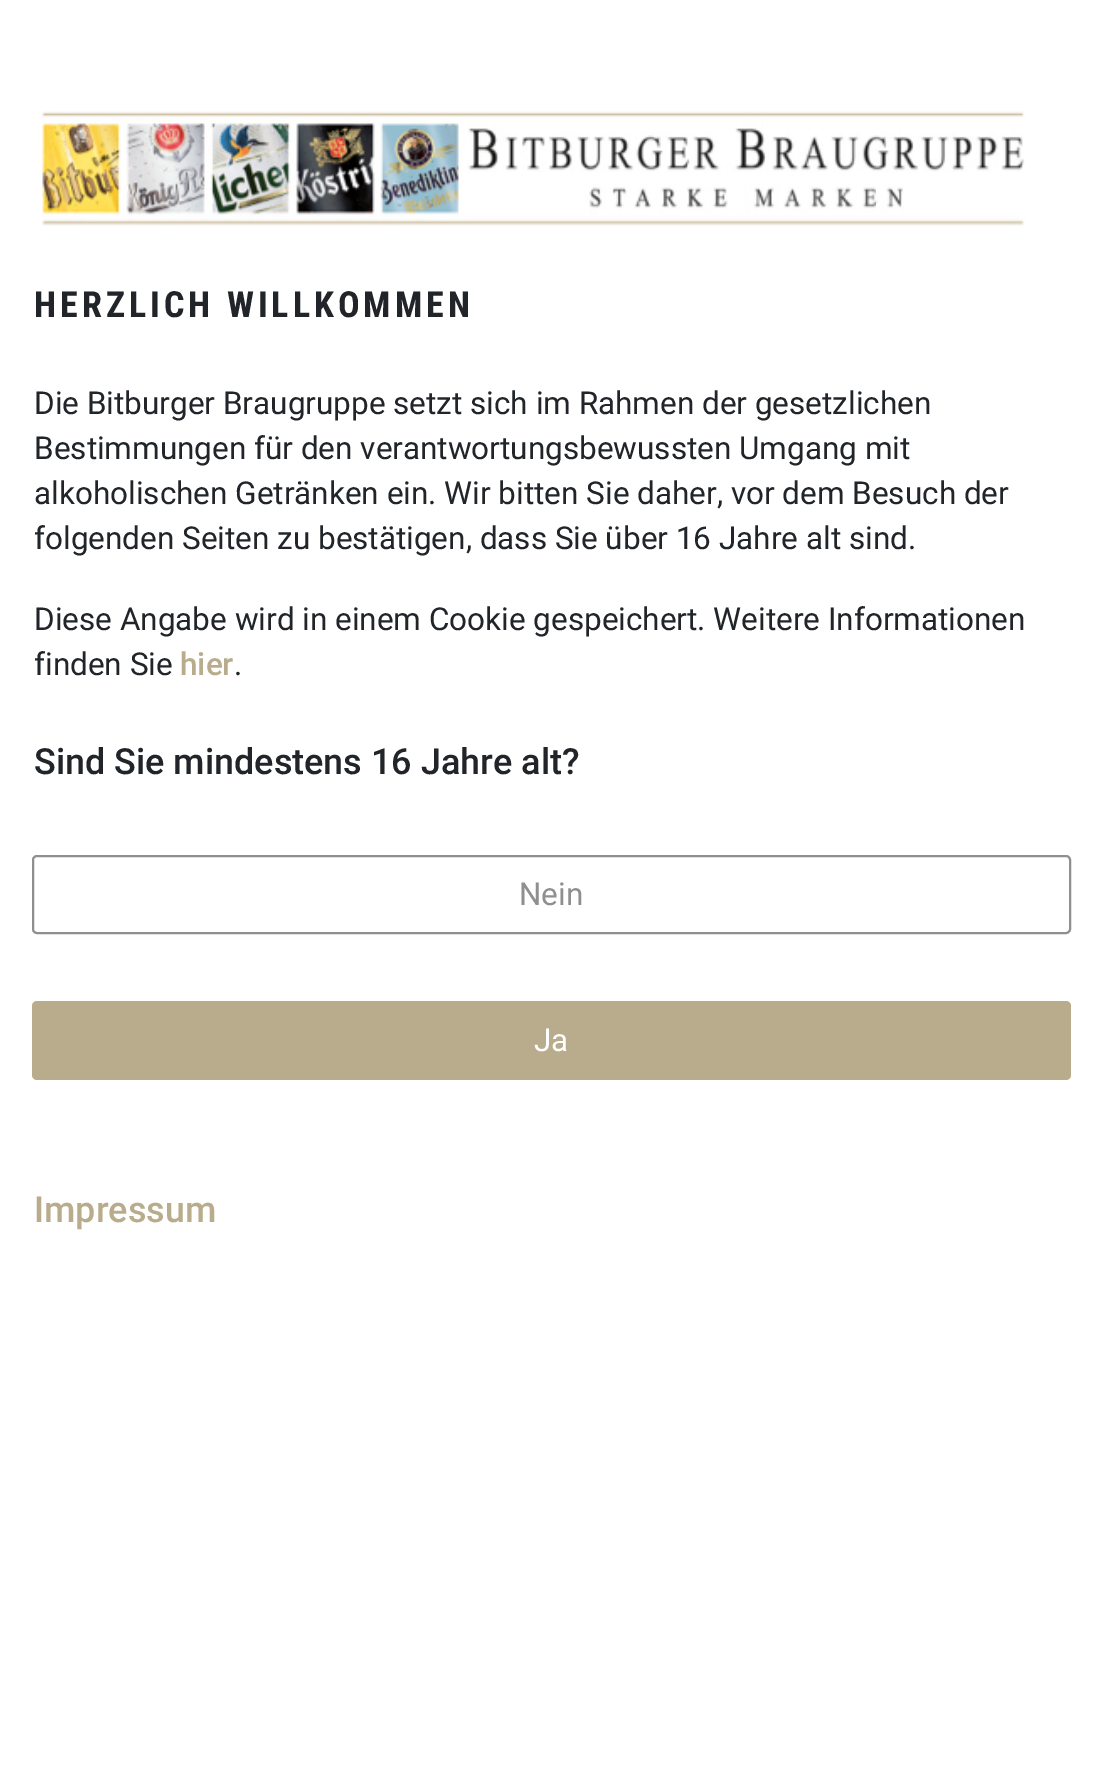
%!PS
<< /PageSize [1101 1782] >> setpagedevice
/rgb { 3 { 255 div 3 1 roll } repeat setrgbcolor } def
/font { [ exch dup neg 0 0 3 -1 roll 0 0 ] selectfont } def
/roundrect { 5 dict begin { /r /h /w /y /x } { exch def } forall
  x r add y moveto x w add y 2 copy h add r arct x w add y h add x 1 index r arct
  x y h add x y r arct x y 2 copy exch w add exch r arct closepath end } def
/picture { 5 dict begin { /h /w /y /x /name } { exch def } forall
  gsave x y translate w h scale
  w h 8 [w 0 0 h 0 0] name (r) file false 3 colorimage grestore end } def
0 1782 translate 1 -1 scale
4 setmiterlimit
255 255 255 rgb
0 0 1101 1782 rectfill
(img/1.rgb) 42 111 983 115 picture
143 143 143 rgb
2 setlinewidth
33 856 1037 77 4 roundrect stroke
185 172 141 rgb
32 1001 1039 79 5 roundrect fill
/RobotoCondensed-Bold 36 font
33 37 41 rgb
34 317 moveto 4 0 (HERZLICH WILLKOMMEN) ashow
/Roboto-Regular 31.5 font
[
  [(Die Bitburger Braugruppe setzt sich im Rahmen der gesetzlichen) 34 414]
  [(Bestimmungen für den verantwortungsbewussten Umgang mit) 34 459]
  [(alkoholischen Getränken ein. Wir bitten Sie daher, vor dem Besuch der) 34 504]
  [(folgenden Seiten zu bestätigen, dass Sie über 16 Jahre alt sind.) 34 549]
  [(Diese Angabe wird in einem Cookie gespeichert. Weitere Informationen) 34 630]
  [(finden Sie) 34 675]
] { aload pop moveto show } forall
/Roboto-Medium 31.5 font
185 172 141 rgb
180 675 moveto (hier) show
/Roboto-Regular 31.5 font
33 37 41 rgb
234 675 moveto (.) show
/Roboto-Medium 36 font
34 774 moveto (Sind Sie mindestens 16 Jahre alt?) show
/Roboto-Regular 31.5 font
143 143 143 rgb
519 905 moveto (Nein) show
255 255 255 rgb
534 1051 moveto (Ja) show
/Roboto-Medium 36 font
185 172 141 rgb
34 1222 moveto (Impressum) show
showpage
